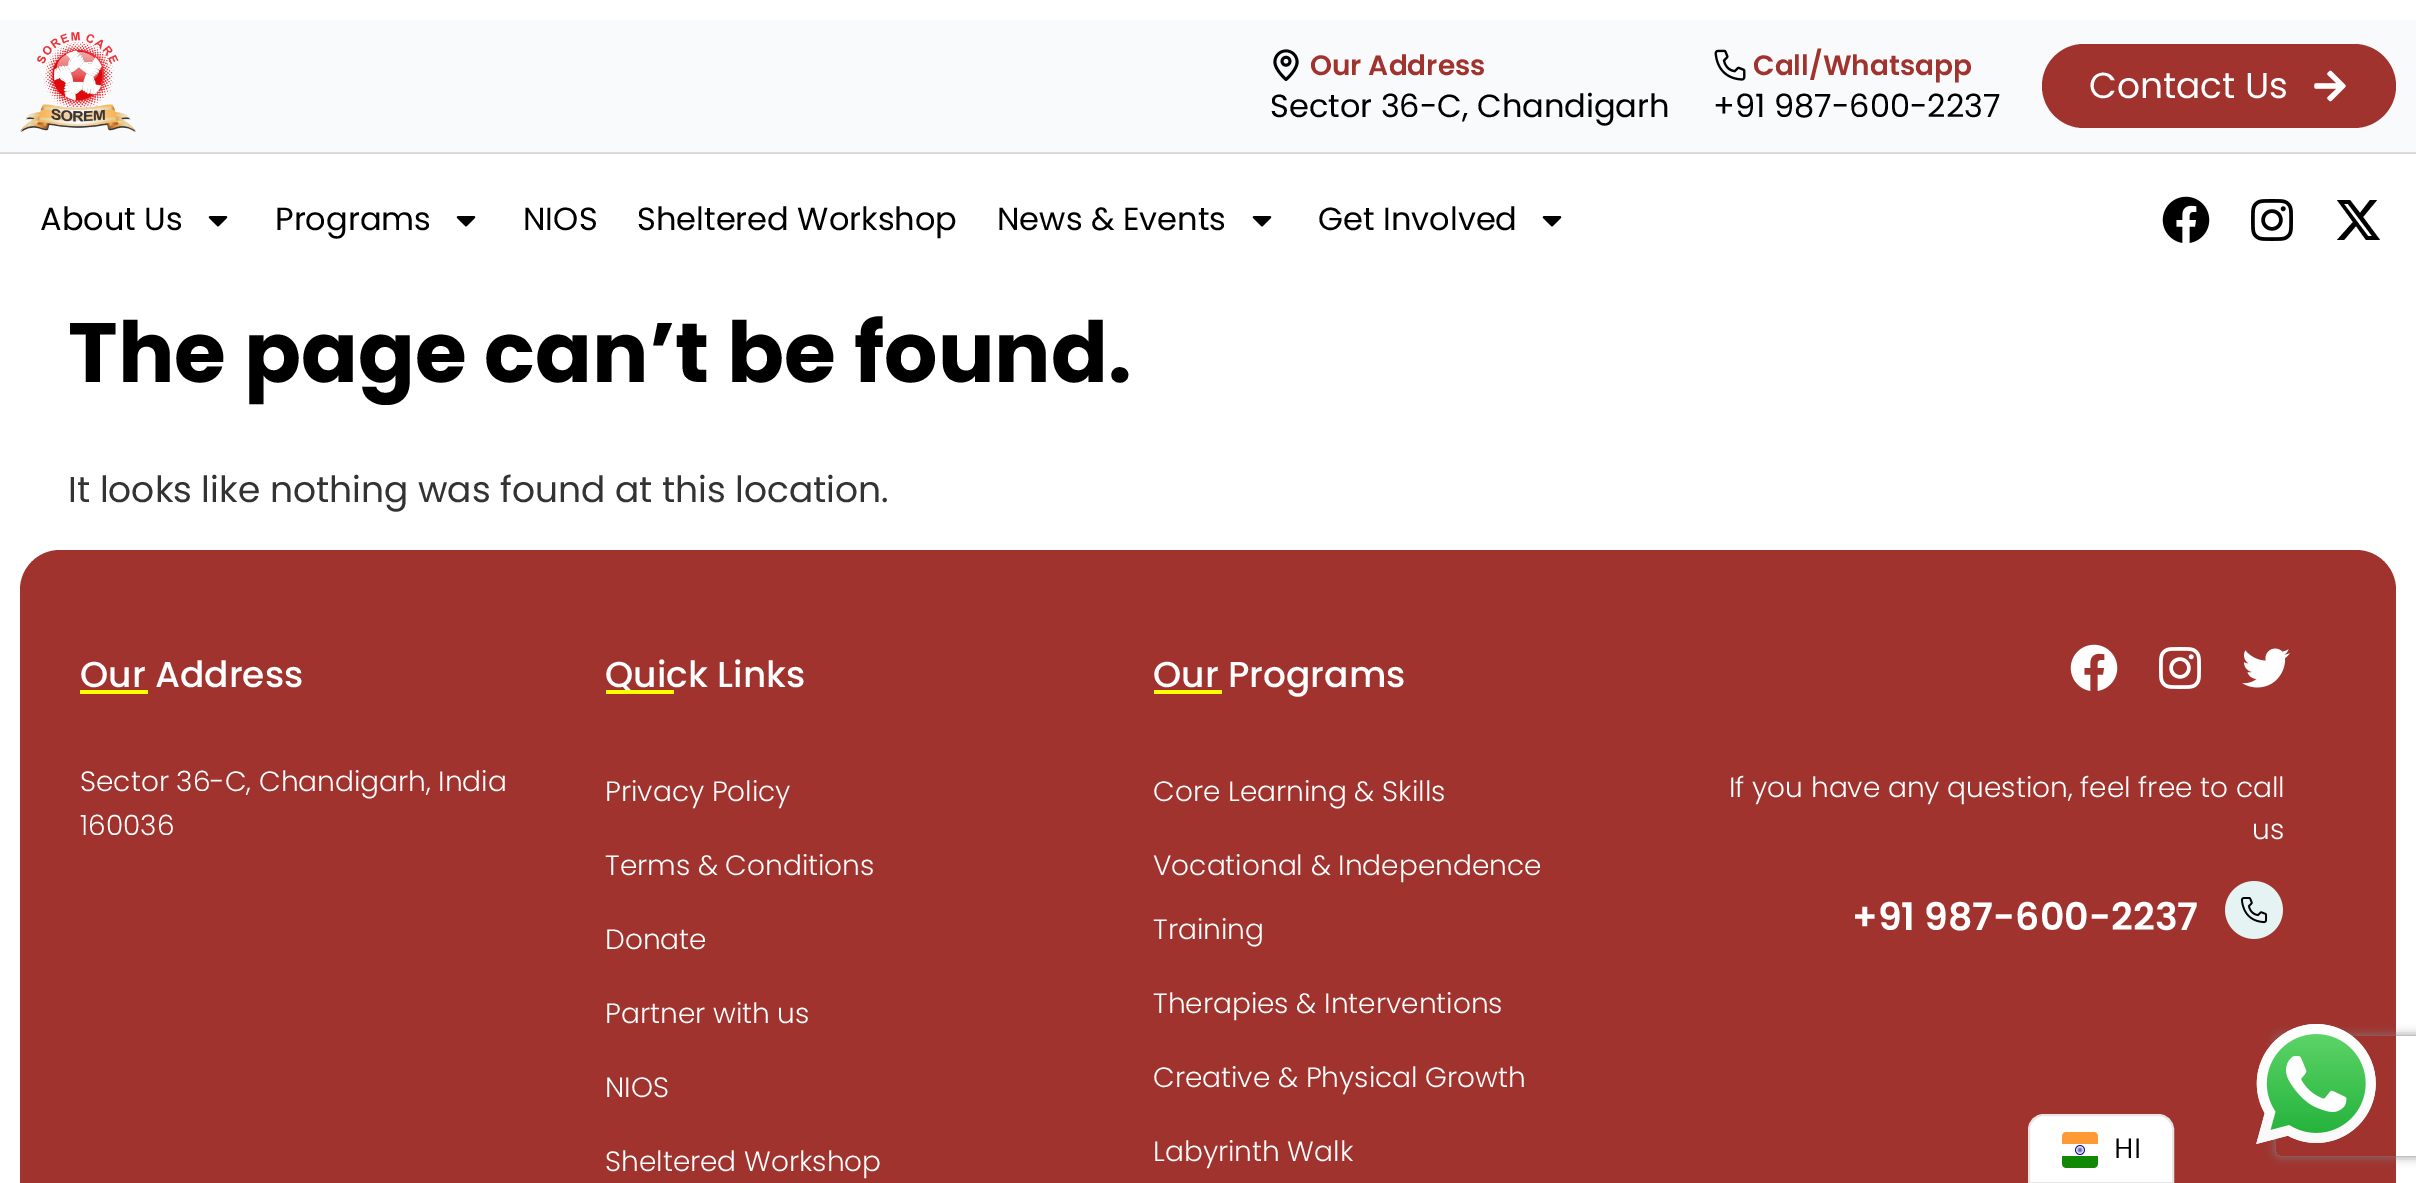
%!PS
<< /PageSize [2416 1183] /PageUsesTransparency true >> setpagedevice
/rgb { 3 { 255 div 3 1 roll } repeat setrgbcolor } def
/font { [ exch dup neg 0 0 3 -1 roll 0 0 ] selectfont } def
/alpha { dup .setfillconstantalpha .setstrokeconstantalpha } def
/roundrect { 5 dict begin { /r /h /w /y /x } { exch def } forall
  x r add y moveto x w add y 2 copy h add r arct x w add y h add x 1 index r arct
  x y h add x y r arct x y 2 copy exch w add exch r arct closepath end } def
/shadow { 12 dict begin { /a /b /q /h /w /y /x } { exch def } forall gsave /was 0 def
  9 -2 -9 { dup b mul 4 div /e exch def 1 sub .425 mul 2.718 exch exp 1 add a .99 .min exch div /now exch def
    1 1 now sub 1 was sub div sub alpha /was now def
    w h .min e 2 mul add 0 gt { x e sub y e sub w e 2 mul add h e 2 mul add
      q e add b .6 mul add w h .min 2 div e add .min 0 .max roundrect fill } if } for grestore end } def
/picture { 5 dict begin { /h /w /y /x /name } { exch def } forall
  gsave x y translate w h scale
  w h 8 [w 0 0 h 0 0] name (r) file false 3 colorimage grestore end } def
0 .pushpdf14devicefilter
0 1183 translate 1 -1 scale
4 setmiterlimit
255 255 255 rgb
0 0 2416 1183 rectfill
249 250 251 rgb
0 20 2416 132 rectfill
217 217 217 rgb
0 152 2416 2 rectfill
(img/1.rgb) 20 32 116 100 picture
(img/2.rgb) 1273 49 26 32 picture
(img/3.rgb) 1714 49 32 32 picture
160 51 46 rgb
2042 44 354 84 42 roundrect fill
(img/4.rgb) 2314 70 32 32 picture
(img/5.rgb) 208 216 20 11 picture
(img/5.rgb) 456 216 20 11 picture
(img/5.rgb) 1252 216 20 11 picture
(img/5.rgb) 1542 216 20 11 picture
(img/6.rgb) 2162 196 48 47 picture
(img/7.rgb) 2251 199 42 42 picture
0 0 0 rgb
2370 200 moveto 2377 200 lineto 2363 217 lineto 2380 240 lineto 2366 240 lineto 2356 226 lineto 2344 240 lineto 2337 240 lineto 2353 222 lineto 2337 200 lineto 2350 200 lineto 2360 213 lineto closepath 2368 236 moveto 2372 236 lineto 2348 204 lineto 2344 204 lineto closepath fill
160 51 46 rgb
20 550 2376 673 40 roundrect fill
255 255 0 rgb
80 690 68 4 rectfill
(img/8.rgb) 2070 644 48 47 picture
(img/9.rgb) 2159 647 42 42 picture
(img/10.rgb) 2242 648 48 40 picture
(img/11.rgb) 2225 881 58 58 picture
gsave
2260 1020 moveto 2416 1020 lineto 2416 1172 lineto 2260 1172 lineto closepath 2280 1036 moveto 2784 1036 lineto 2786 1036 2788 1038 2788 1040 curveto 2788 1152 lineto 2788 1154 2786 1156 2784 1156 curveto 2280 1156 lineto 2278 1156 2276 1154 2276 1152 curveto 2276 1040 lineto 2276 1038 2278 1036 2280 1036 curveto closepath eoclip newpath
128 128 128 rgb
2276 1036 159 120 4 5 1 shadow
grestore
(img/12.rgb) 2256 1024 120 120 picture
255 255 255 rgb
2044 1115 moveto 2158 1115 lineto 2166.5 1115 2173 1121.5 2173 1130 curveto 2173 1183 lineto 2029 1183 lineto 2029 1130 lineto 2029 1121.5 2035.5 1115 2044 1115 curveto closepath gsave fill grestore
230 230 230 rgb
2 setlinewidth
stroke
(img/13.rgb) 2062 1132 36 36 picture
/Poppins-SemiBold 28 font
160 51 46 rgb
1310 75 moveto (Our Address) show
/Poppins-Regular 32 font
0 0 0 rgb
1270 117 moveto (Sector 36-C, Chandigarh) show
/Poppins-SemiBold 28 font
160 51 46 rgb
1753 75 moveto (Call/Whatsapp) show
/Poppins-Regular 32 font
0 0 0 rgb
1713 117 moveto (+91 987-600-2237) show
/Poppins-Regular 36 font
255 255 255 rgb
2089 98 moveto (Contact Us) show
/Poppins-Regular 32 font
0 0 0 rgb
[
  [(About Us) 40 230]
  [(Programs) 275 230]
  [(NIOS) 523 230]
  [(Sheltered Workshop) 637 230]
  [(News & Events) 997 230]
  [(Get Involved) 1318 230]
] { aload pop moveto show } forall
/Poppins-Bold 84 font
68 382 moveto (The page can’t be found.) show
/Poppins-Regular 36 font
51 51 51 rgb
68 502 moveto (It looks like nothing was found at this location.) show
/Poppins-Medium 36 font
255 255 255 rgb
80 687 moveto (Our Address) show
/Poppins-Light 28 font
80 791 moveto (Sector 36-C, Chandigarh, India) show
80 835 moveto (160036) show
/Poppins-Medium 36 font
605 687 moveto (Quick Links) show
255 255 0 rgb
606 690 68 4 rectfill
/Poppins-Light 28 font
255 255 255 rgb
[
  [(Privacy Policy) 605 801]
  [(Terms & Conditions) 605 875]
  [(Donate) 605 949]
  [(Partner with us) 605 1023]
  [(NIOS) 605 1097]
  [(Sheltered Workshop) 605 1171]
] { aload pop moveto show } forall
/Poppins-Medium 36 font
1153 687 moveto (Our Programs) show
255 255 0 rgb
1154 690 68 4 rectfill
/Poppins-Light 28 font
255 255 255 rgb
[
  [(Core Learning & Skills) 1153 801]
  [(Vocational & Independence) 1153 875]
  [(Training) 1153 939]
  [(Therapies & Interventions) 1153 1013]
  [(Creative & Physical Growth) 1153 1087]
  [(Labyrinth Walk) 1153 1161]
  [(If you have any question, feel free to call) 1729 797]
  [(us) 2252 839]
] { aload pop moveto show } forall
/Poppins-SemiBold 38 font
1852 930 moveto (+91 987-600-2237) show
/Ubuntu-Regular 28 font
0 0 0 rgb
2114 1158 moveto (HI) show
.poppdf14devicefilter showpage
